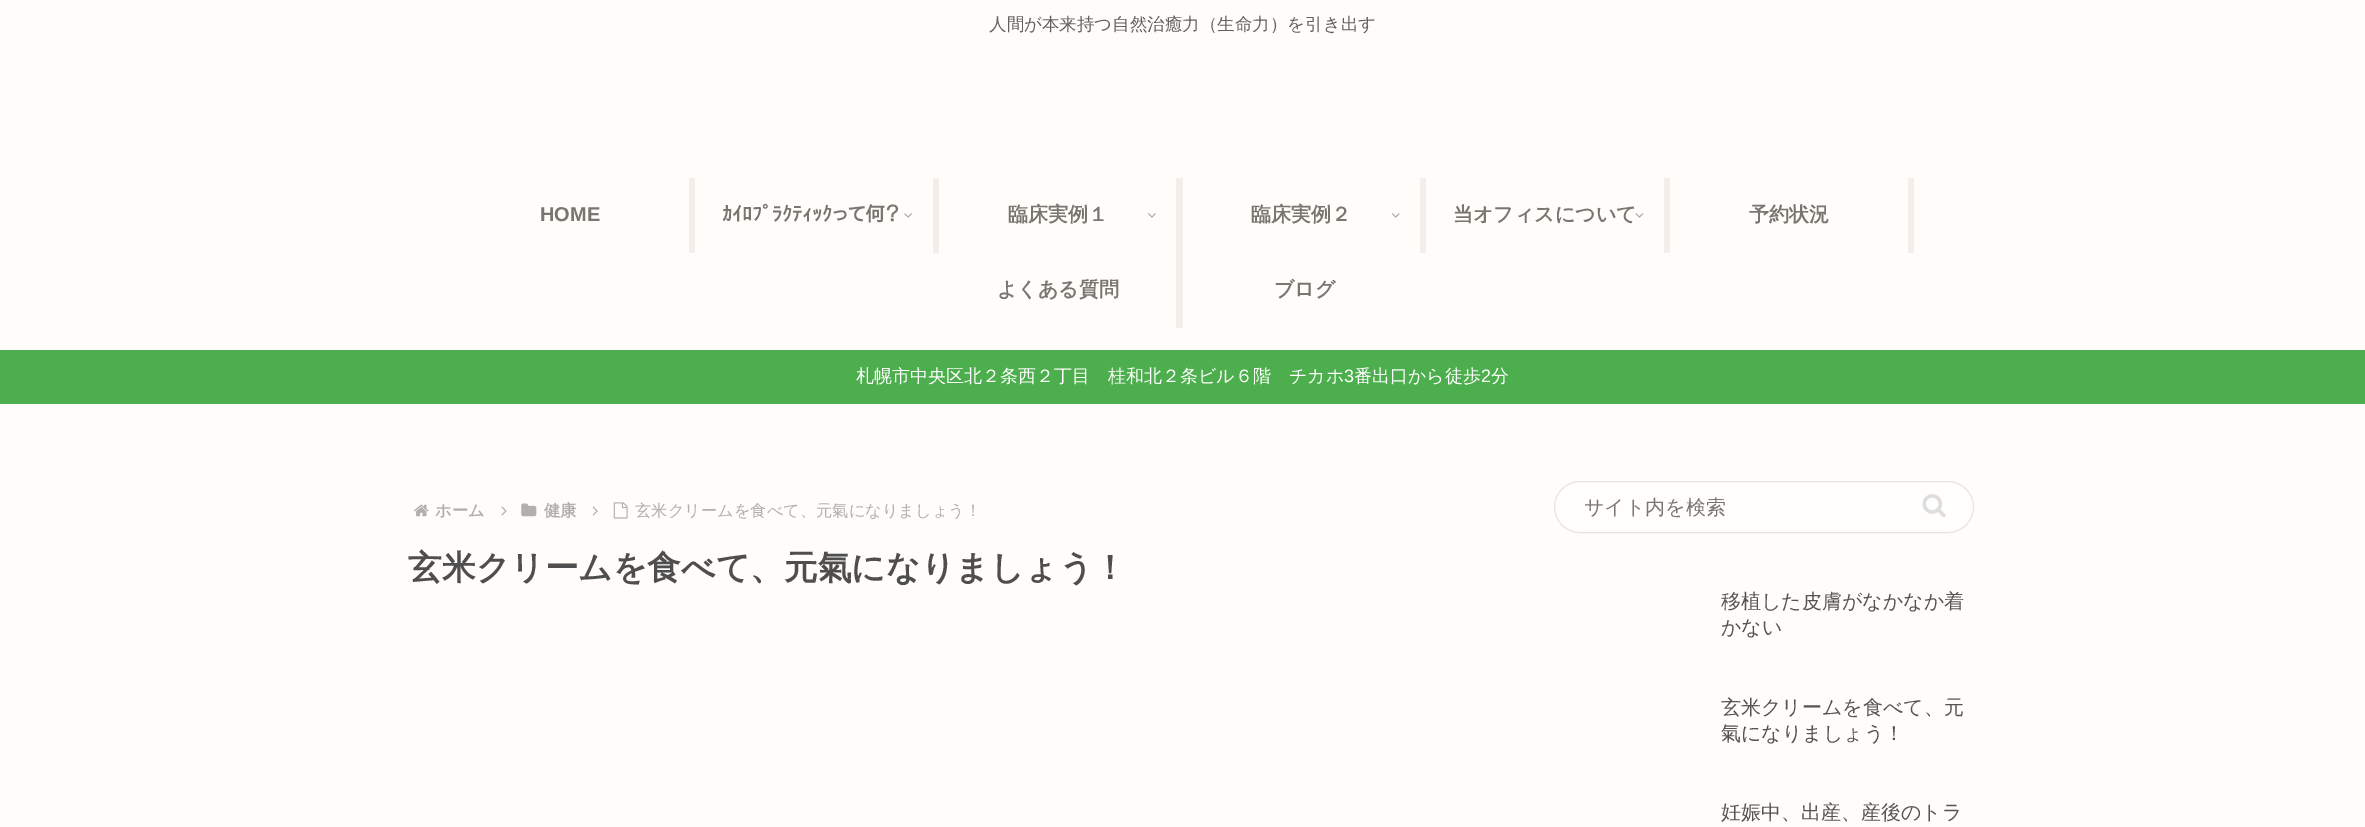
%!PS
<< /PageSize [2365 827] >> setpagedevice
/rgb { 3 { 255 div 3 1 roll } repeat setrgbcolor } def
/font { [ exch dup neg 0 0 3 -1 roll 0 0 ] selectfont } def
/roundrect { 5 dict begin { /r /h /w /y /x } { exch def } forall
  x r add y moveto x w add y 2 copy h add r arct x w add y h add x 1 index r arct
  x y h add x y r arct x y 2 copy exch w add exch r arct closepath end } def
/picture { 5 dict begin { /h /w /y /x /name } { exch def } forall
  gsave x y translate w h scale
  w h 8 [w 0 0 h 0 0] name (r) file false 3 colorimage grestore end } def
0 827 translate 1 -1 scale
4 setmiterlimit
255 252 249 rgb
0 0 2365 827 rectfill
243 238 233 rgb
689 178 6 75 rectfill
933 178 6 75 rectfill
(img/1.rgb) 904 213 8 5 picture
1176 178 7 150 rectfill
(img/2.rgb) 1148 213 8 5 picture
1420 178 6 75 rectfill
(img/3.rgb) 1391 213 9 5 picture
1664 178 6 75 rectfill
(img/4.rgb) 1635 213 9 5 picture
1908 178 6 75 rectfill
76 174 76 rgb
0 350 2365 54 rectfill
(img/5.rgb) 414 504 15 13 picture
(img/6.rgb) 501 506 6 10 picture
(img/7.rgb) 521 503 16 14 picture
(img/8.rgb) 592 506 6 10 picture
(img/9.rgb) 613 502 15 17 picture
255 254 252 rgb
1554.5 481.5 419 51 25.5 roundrect gsave fill grestore
232 229 225 rgb
stroke
(img/10.rgb) 1922 494 24 24 picture
/WenQuanYiZenHei-Medium 17.5 font
97 97 97 rgb
989 30 moveto (人間が本来持つ自然治癒力（生命力）を引き出す) show
/LiberationSans-Bold 20 font
121 117 113 rgb
540 221 moveto (HOME) show
/IPAPGothic-Bold 20 font
722 221 moveto (ｶｲﾛﾌﾟﾗｸﾃｨｯｸって何？) show
/WenQuanYiZenHei-Bold 20 font
[
  [(臨床実例１) 1008 221]
  [(臨床実例２) 1251 221]
  [(当オフィスについて) 1453 221]
  [(予約状況) 1749 221]
  [(よくある質問) 997 296]
  [(ブログ) 1274 296]
] { aload pop moveto show } forall
/WenQuanYiZenHei-Medium 18 font
255 255 255 rgb
856 382 moveto (札幌市中央区北２条西２丁目　桂和北２条ビル６階　チカホ) show
/LiberationSans-Regular 18 font
1344 382 moveto (3) show
/WenQuanYiZenHei-Medium 18 font
1354 382 moveto (番出口から徒歩) show
/LiberationSans-Regular 18 font
1481 382 moveto (2) show
/WenQuanYiZenHei-Medium 18 font
1491 382 moveto (分) show
/WenQuanYiZenHei-Bold 16.25 font
177 175 171 rgb
435 516 moveto (ホーム) show
544 516 moveto (健康) show
/WenQuanYiZenHei-Medium 16.25 font
635 516 moveto (玄米クリームを食べて、元氣になりましょう！) show
/WenQuanYiZenHei-Bold 33.75 font
78 78 78 rgb
408 579 moveto (玄米クリームを食べて、元氣になりましょう！) show
/WenQuanYiZenHei-Medium 20 font
121 117 113 rgb
1584 514 moveto (サイト内を検索) show
84 84 84 rgb
[
  [(移植した皮膚がなかなか着) 1721 608]
  [(かない) 1721 634]
  [(玄米クリームを食べて、元) 1721 714]
  [(氣になりましょう！) 1721 740]
  [(妊娠中、出産、産後のトラ) 1721 819]
] { aload pop moveto show } forall
showpage
